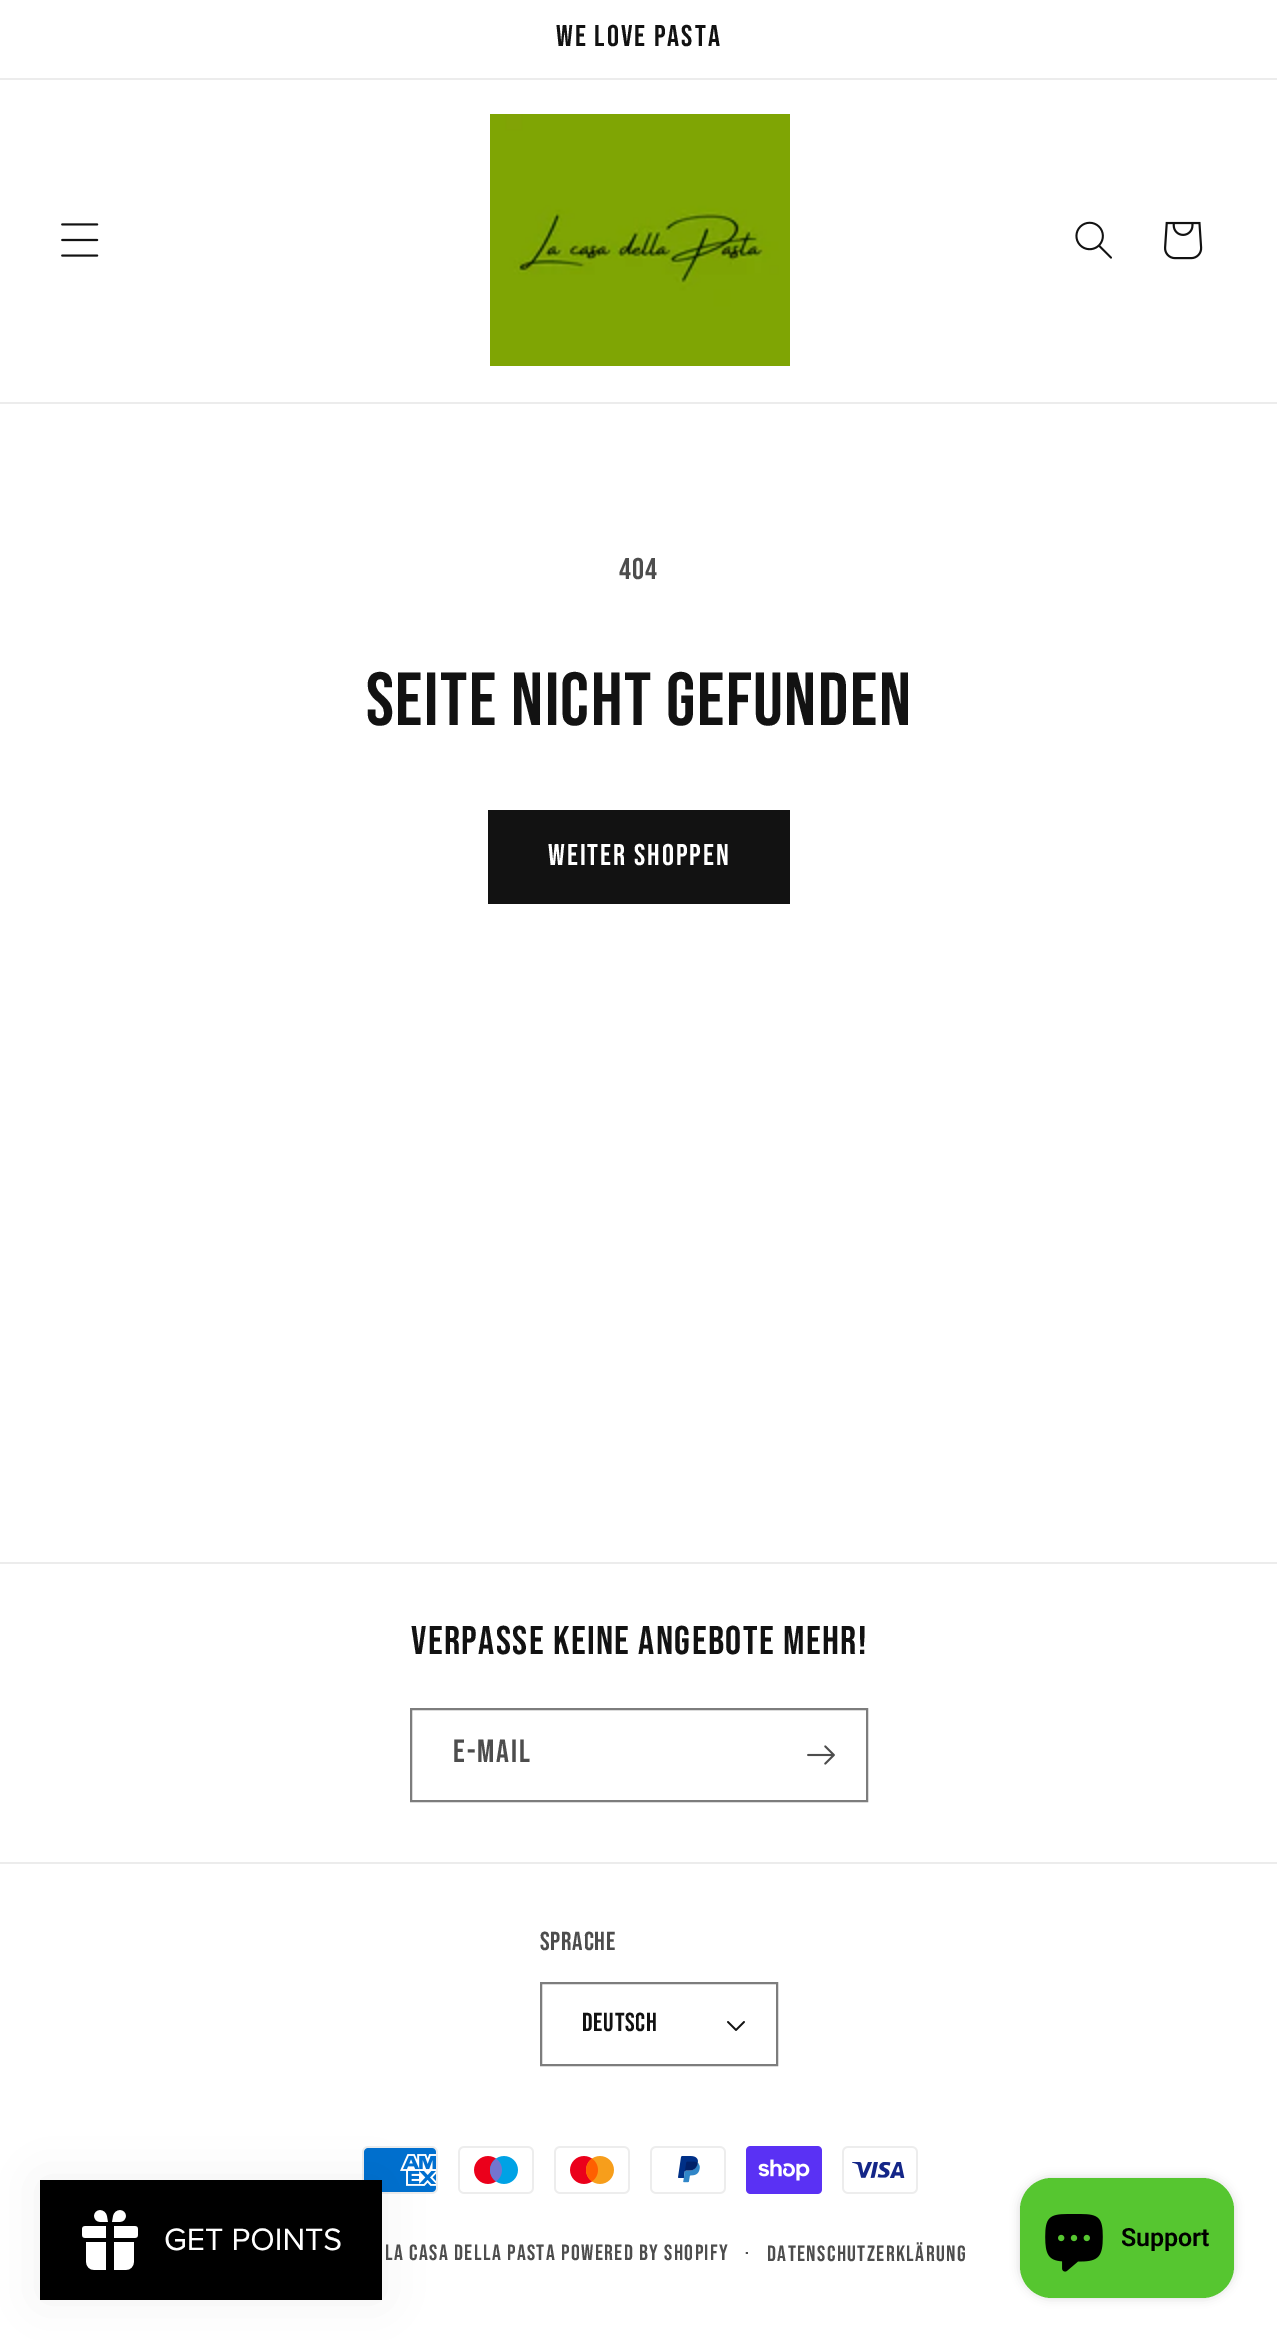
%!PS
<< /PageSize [1277 2340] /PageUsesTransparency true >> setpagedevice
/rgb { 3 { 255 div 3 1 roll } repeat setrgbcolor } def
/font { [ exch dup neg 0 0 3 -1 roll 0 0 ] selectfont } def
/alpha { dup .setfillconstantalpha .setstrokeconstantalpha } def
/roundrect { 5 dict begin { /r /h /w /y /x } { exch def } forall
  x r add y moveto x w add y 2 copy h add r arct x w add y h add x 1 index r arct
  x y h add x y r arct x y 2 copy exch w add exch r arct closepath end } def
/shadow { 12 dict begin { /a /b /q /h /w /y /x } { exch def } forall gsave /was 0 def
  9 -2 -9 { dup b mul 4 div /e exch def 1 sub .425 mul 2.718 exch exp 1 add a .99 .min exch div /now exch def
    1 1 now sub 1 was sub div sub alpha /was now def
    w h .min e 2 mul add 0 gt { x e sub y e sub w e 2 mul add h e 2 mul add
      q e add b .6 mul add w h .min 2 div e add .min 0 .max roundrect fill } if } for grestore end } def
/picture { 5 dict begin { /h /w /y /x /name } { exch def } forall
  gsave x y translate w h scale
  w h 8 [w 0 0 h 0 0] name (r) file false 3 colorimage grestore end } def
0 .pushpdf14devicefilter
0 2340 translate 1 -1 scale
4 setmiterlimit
255 255 255 rgb
0 0 1277 2340 rectfill
236 236 236 rgb
0 78 1277 2 rectfill
0 402 1277 2 rectfill
(img/1.rgb) 61 223 38 34 picture
(img/2.rgb) 490 114 300 252 picture
(img/3.rgb) 1075 221 37 38 picture
(img/4.rgb) 1164 221 39 39 picture
18 18 18 rgb
488 810 302 94 rectfill
(img/8.rgb) 362 2146 76 48 picture
0 0 0 rgb
40 2180 342 120 0 25 0.05 shadow
(img/5.rgb) 40 2180 342 120 picture
236 236 236 rgb
0 1562 1277 2 rectfill
125 125 125 rgb
2 setlinewidth
411 1709 456 92 rectstroke
(img/6.rgb) 807 1745 28 20 picture
236 236 236 rgb
0 1862 1277 2 rectfill
(img/7.rgb) 727 2021 18 10 picture
125 125 125 rgb
541 1983 236 82 rectstroke
(img/9.rgb) 458 2146 76 48 picture
(img/10.rgb) 554 2146 76 48 picture
(img/11.rgb) 650 2146 76 48 picture
(img/12.rgb) 746 2146 76 48 picture
(img/13.rgb) 842 2146 76 48 picture
0 0 0 rgb
1020 2178 214 120 32 5 0.15 shadow
86 198 48 rgb
1020 2178 214 120 32 roundrect fill
(img/14.rgb) 1045 2214 58 58 picture
/BebasNeue-Regular 30 font
18 18 18 rgb
556 46 moveto 2 0 (WE LOVE PASTA) ashow
77 77 77 rgb
619 579 moveto 1 0 (404) ashow
/BebasNeue-Regular 75 font
18 18 18 rgb
366 725 moveto 1.5 0 (Seite nicht gefunden) ashow
/BebasNeue-Regular 30 font
255 255 255 rgb
548 865 moveto 2 0 (Weiter shoppen) ashow
/BebasNeue-Regular 40 font
18 18 18 rgb
411 1654 moveto 1.5 0 (Verpasse keine Angebote mehr!) ashow
/BebasNeue-Regular 32 font
77 77 77 rgb
453 1762 moveto 2 0 (E-Mail) ashow
/BebasNeue-Regular 26 font
540 1950 moveto 0.75 0 (Sprache) ashow
18 18 18 rgb
582 2031 moveto 0.75 0 (Deutsch) ashow
/BebasNeue-Regular 22 font
77 77 77 rgb
385 2260 moveto 1.4 0 (La Casa Della Pasta Powered by Shopify) ashow
/BebasNeue-Regular 20 font
745 2260 moveto 1.4 0 (·) ashow
/BebasNeue-Regular 22 font
767 2261 moveto 1.4 0 (Datenschutzerklärung) ashow
/Roboto-SemiBold 25 font
0 0 0 rgb
1121 2246 moveto (Support) show
.poppdf14devicefilter showpage
